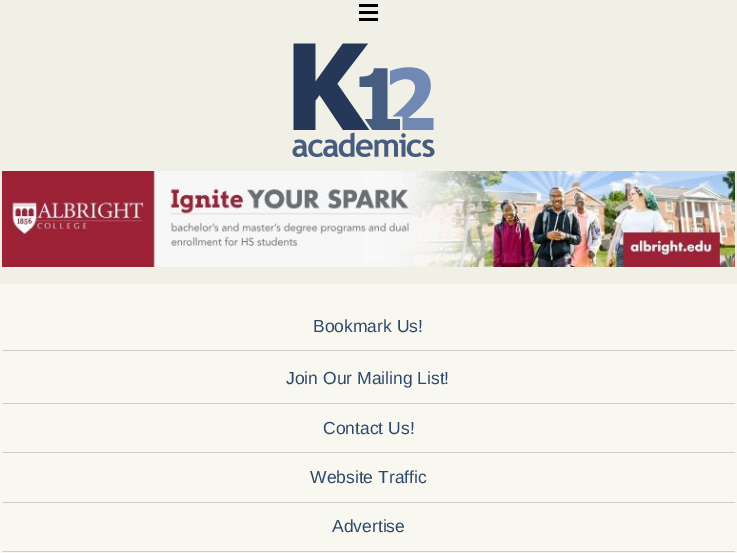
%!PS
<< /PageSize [737 553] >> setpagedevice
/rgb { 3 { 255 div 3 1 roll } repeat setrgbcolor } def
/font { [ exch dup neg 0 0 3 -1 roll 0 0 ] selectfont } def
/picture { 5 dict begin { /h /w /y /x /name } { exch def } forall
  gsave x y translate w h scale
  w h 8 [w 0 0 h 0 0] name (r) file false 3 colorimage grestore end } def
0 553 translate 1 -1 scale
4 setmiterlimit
248 248 241 rgb
0 0 737 553 rectfill
[
  [0 0 737 284 241 240 230]
  [359 4 19 3 0 0 0]
  [359 11 19 3 0 0 0]
  [359 18 19 3 0 0 0]
] { aload pop rgb rectfill } forall
(img/1.rgb) 292 43 143 114 picture
(img/2.rgb) 2 171 733 96 picture
[
  [2 350 733 1 204 204 204]
  [2 403 733 1 204 204 204]
  [2 452 733 1 204 204 204]
  [2 502 733 1 204 204 204]
  [2 551 733 1 204 204 204]
] { aload pop rgb rectfill } forall
/LiberationSans-Regular 17.5 font
46 72 107 rgb
[
  [(Bookmark Us!) 313 332]
  [(Join Our Mailing List!) 286 384]
  [(Contact Us!) 323 434]
  [(Website Traffic) 310 483]
  [(Advertise) 332 532]
] { aload pop moveto show } forall
showpage
